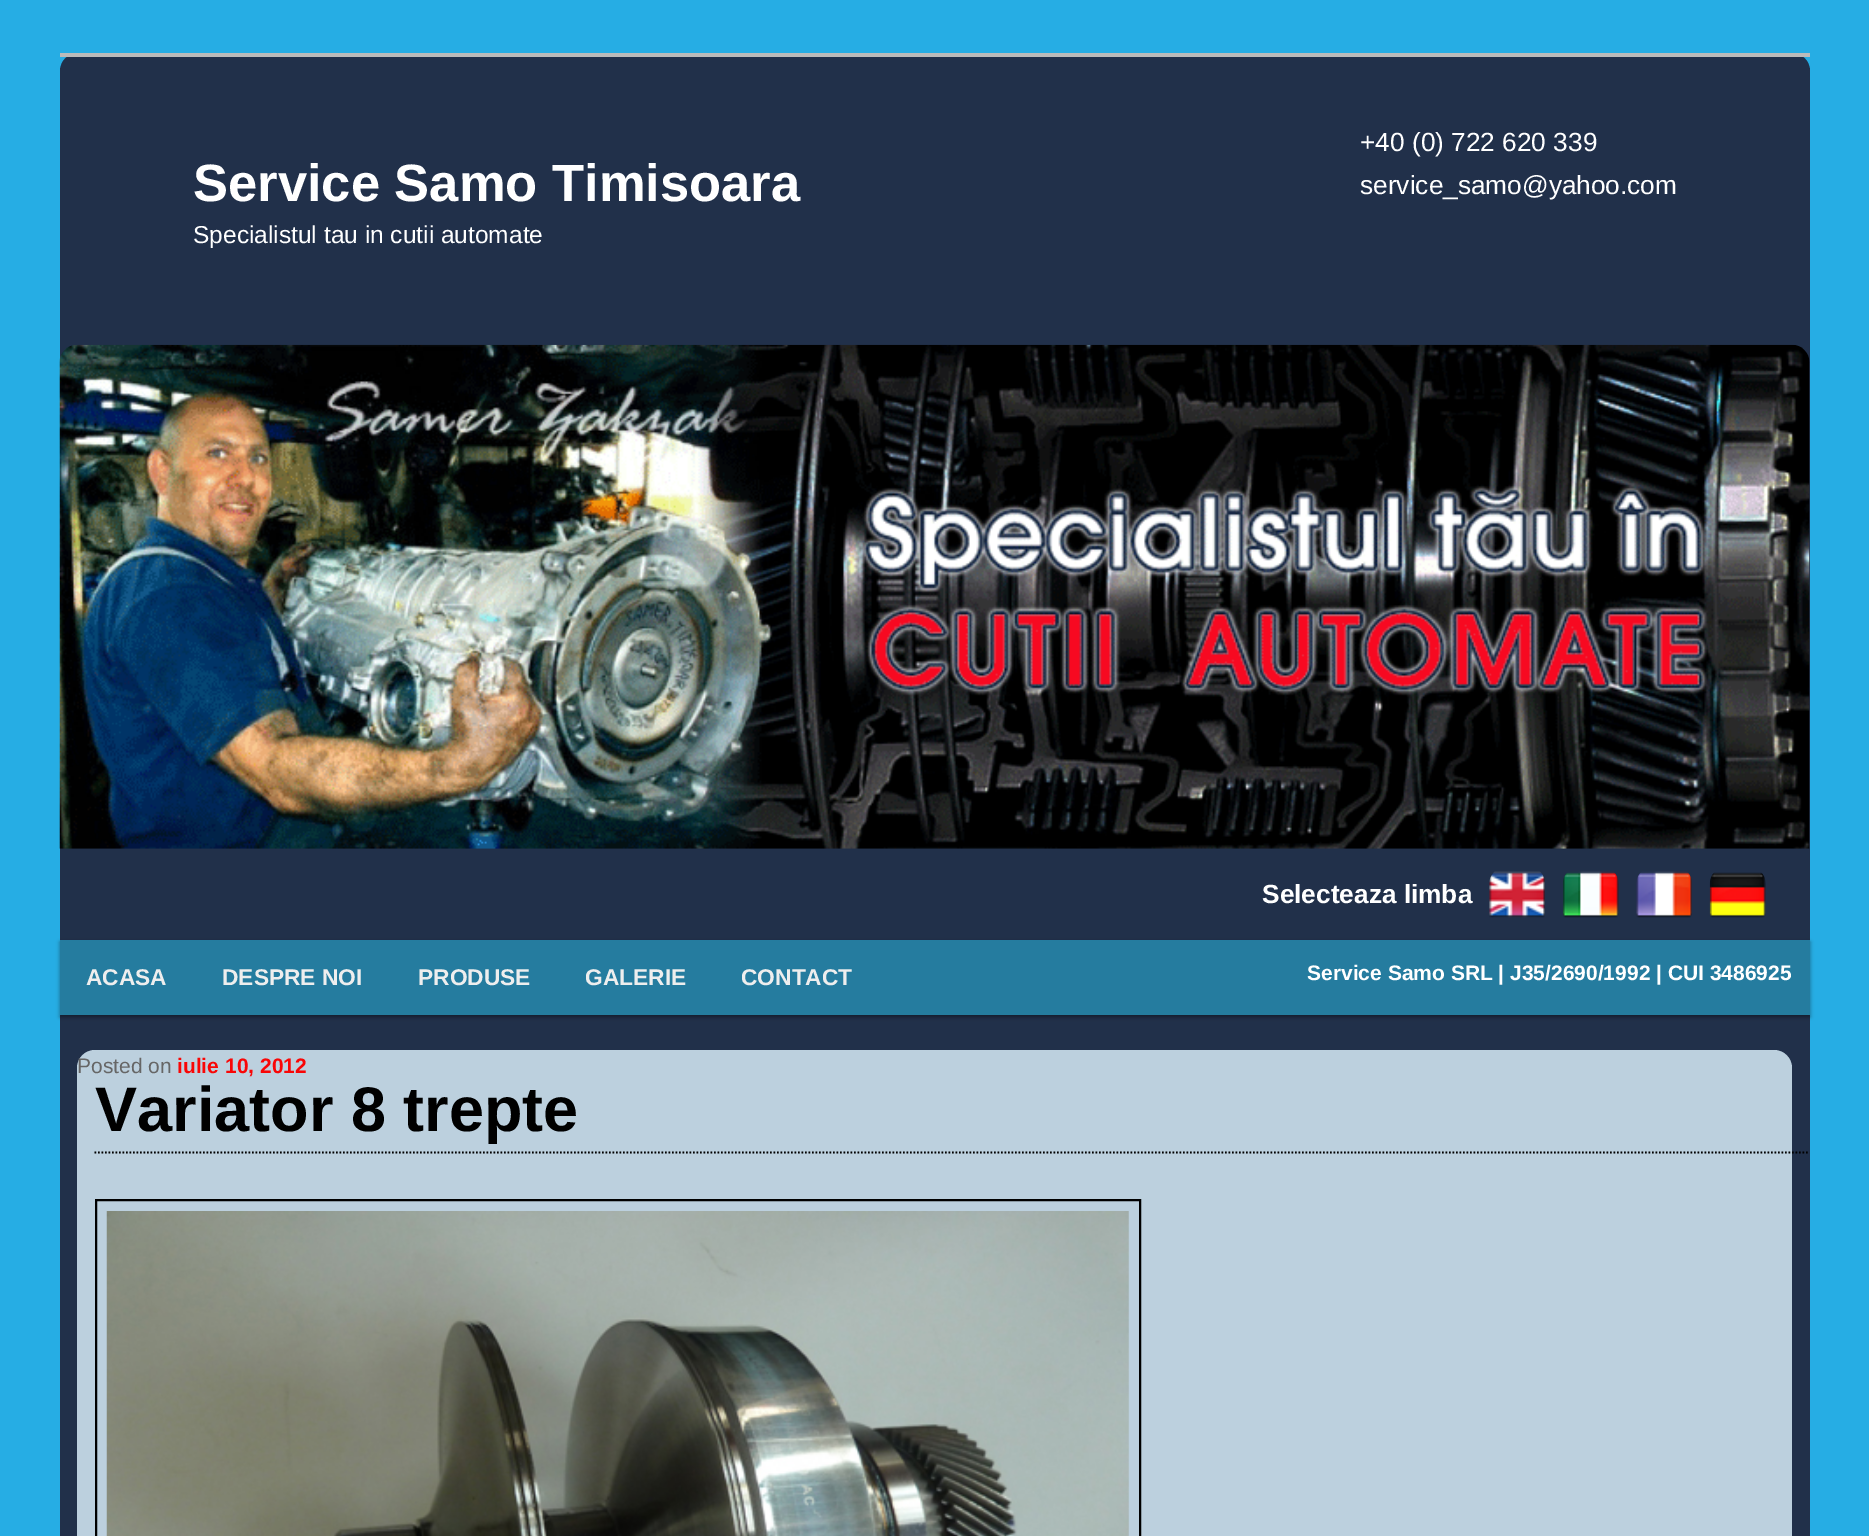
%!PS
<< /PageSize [1869 1536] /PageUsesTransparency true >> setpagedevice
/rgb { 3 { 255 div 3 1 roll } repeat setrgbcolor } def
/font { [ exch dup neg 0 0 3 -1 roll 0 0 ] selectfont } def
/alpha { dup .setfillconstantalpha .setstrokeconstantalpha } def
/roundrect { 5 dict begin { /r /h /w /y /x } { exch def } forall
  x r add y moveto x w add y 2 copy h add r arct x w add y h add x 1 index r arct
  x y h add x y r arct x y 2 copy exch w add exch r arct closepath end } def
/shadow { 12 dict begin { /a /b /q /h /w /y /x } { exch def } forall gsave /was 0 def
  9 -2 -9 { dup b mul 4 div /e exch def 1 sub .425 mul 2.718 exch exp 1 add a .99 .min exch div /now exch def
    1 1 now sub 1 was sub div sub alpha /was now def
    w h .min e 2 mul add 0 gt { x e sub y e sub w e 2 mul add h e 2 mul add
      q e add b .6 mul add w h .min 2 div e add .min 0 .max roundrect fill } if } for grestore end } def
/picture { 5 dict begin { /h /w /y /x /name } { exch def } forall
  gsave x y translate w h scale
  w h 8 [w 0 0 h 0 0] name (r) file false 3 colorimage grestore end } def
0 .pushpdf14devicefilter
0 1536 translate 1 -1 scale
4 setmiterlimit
38 173 228 rgb
0 0 1869 1536 rectfill
33 48 74 rgb
60 53 1750 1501 18 roundrect fill
187 187 187 rgb
60 53 1750 4 rectfill
(img/1.rgb) 59 344 1751 505 picture
(img/2.rgb) 1489 871 56 47 picture
(img/3.rgb) 1563 871 56 47 picture
(img/4.rgb) 1636 871 56 47 picture
(img/5.rgb) 1709 872 57 46 picture
0 0 0 rgb
60 942 1750 75 0 2 0.4 shadow
37 124 159 rgb
60 940 1750 75 rectfill
188 208 222 rgb
77 1050 1715 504 18 roundrect fill
0 0 0 rgb
1.8 setlinewidth
[1.75 1.75] 0 setdash
94.5 1152.5 moveto 1809.5 1152.5 lineto stroke
2 setlinewidth
[] 0 setdash
96 1200 1044 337 rectstroke
(img/6.rgb) 106 1211 1023 325 picture
/LiberationSans-Bold 52.5 font
255 255 255 rgb
193 201 moveto (Service Samo Timisoara) show
/LiberationSans-Regular 24.5 font
193 243 moveto (Specialistul tau in cutii automate) show
/LiberationSans-Regular 26.25 font
1360 151 moveto (+40 \(0\) 722 620 339) show
1360 194 moveto (service_samo@yahoo.com) show
/LiberationSans-Bold 26.25 font
1262 903 moveto (Selecteaza limba) show
/LiberationSans-Bold 22.75 font
238 238 238 rgb
[
  [(ACASA) 86 985]
  [(DESPRE NOI) 222 985]
  [(PRODUSE) 418 985]
  [(GALERIE) 585 985]
  [(CONTACT) 741 985]
] { aload pop moveto show } forall
/LiberationSans-Bold 21 font
255 255 255 rgb
1307 980 moveto (Service Samo SRL | J35/2690/1992 | CUI 3486925) show
/LiberationSans-Regular 21 font
102 102 102 rgb
77 1073 moveto (Posted on) show
/LiberationSans-Bold 21 font
249 6 6 rgb
177 1073 moveto (iulie 10, 2012) show
/LiberationSans-Bold 63 font
0 0 0 rgb
95 1131 moveto (Variator 8 trepte) show
.poppdf14devicefilter showpage
